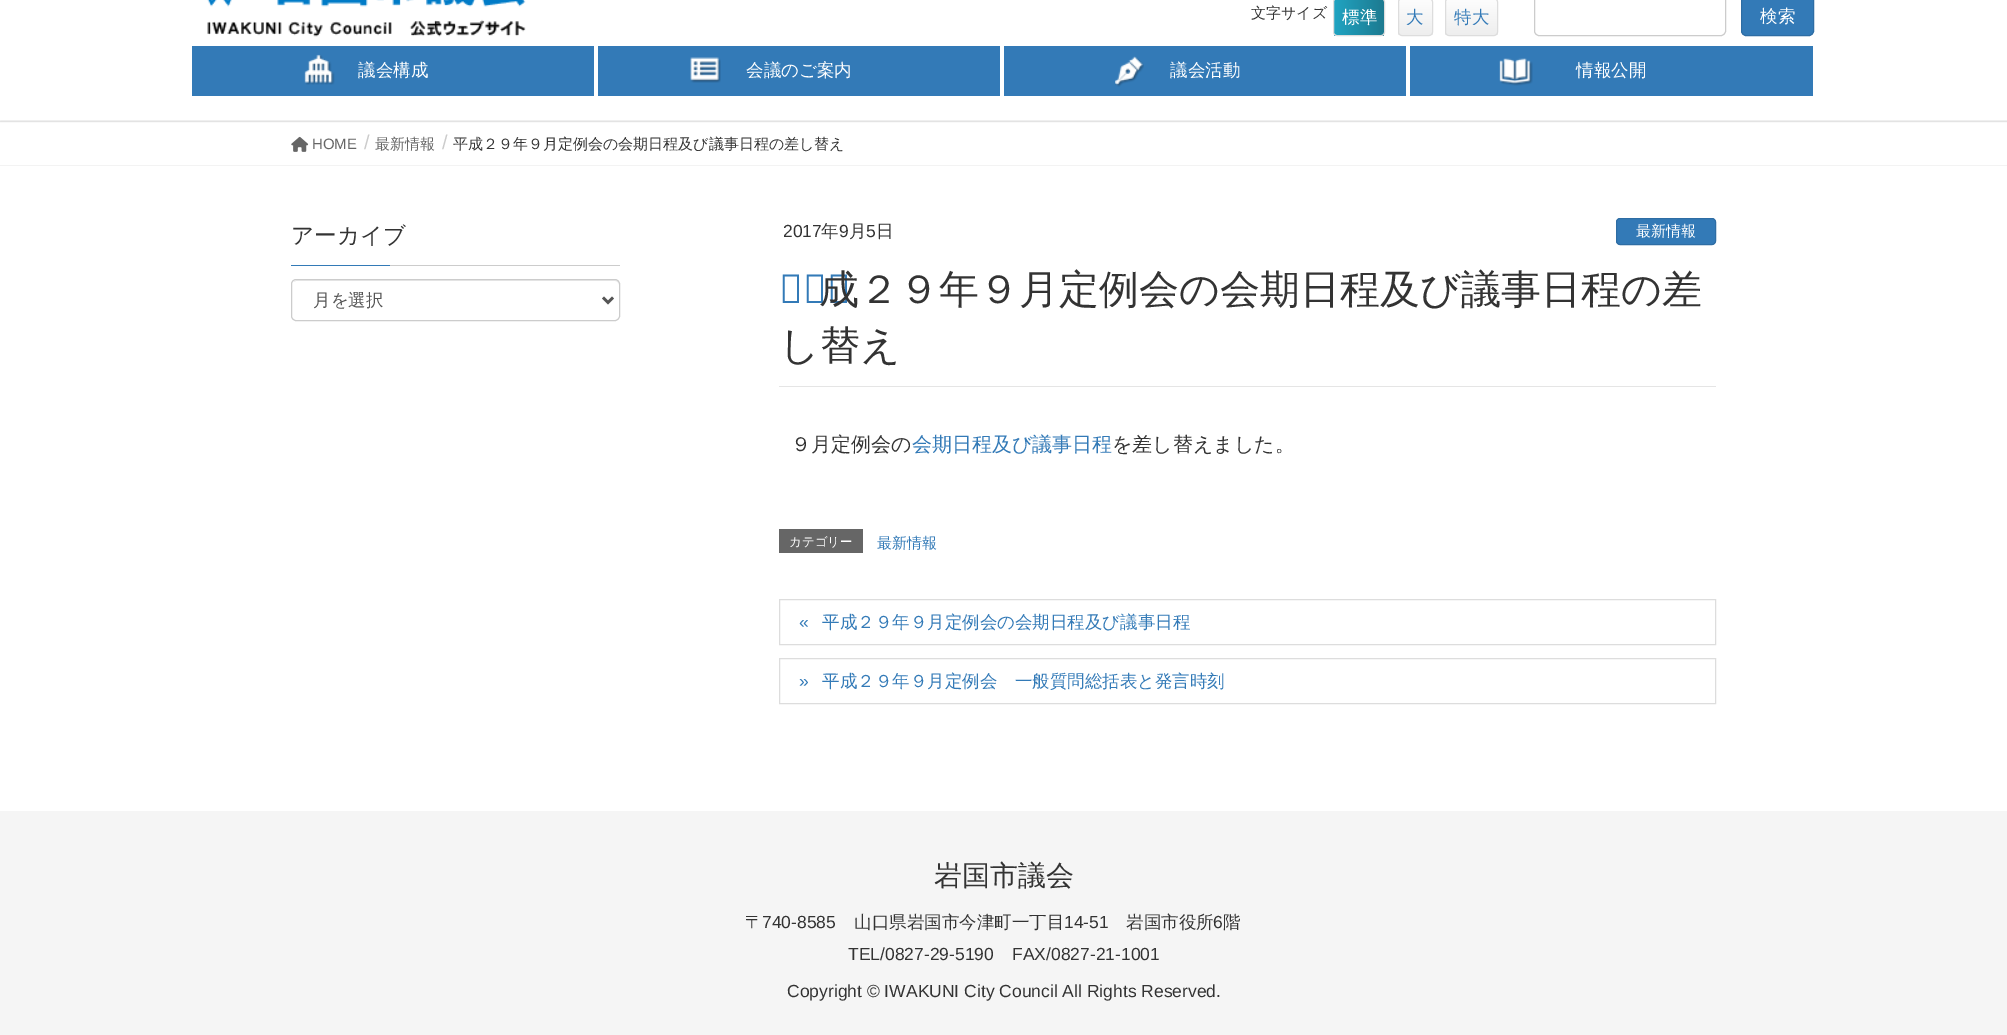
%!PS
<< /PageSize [2007 1035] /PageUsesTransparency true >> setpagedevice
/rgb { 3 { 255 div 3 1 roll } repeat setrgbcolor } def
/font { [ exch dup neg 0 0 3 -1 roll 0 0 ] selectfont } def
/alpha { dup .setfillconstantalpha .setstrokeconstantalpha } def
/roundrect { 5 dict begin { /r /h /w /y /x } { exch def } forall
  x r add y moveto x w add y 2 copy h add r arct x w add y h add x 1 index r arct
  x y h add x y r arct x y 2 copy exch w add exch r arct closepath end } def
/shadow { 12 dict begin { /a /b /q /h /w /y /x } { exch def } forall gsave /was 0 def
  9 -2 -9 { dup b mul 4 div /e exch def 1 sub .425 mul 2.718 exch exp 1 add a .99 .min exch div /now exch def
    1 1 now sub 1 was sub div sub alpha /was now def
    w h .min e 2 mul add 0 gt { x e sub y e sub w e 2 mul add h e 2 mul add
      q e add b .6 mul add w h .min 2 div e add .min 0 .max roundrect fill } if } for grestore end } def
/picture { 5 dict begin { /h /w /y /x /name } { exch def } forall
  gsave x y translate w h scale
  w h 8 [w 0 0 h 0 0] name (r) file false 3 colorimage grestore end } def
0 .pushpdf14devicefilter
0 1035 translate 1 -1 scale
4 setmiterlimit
255 255 255 rgb
0 0 2007 1035 rectfill
238 238 238 rgb
0 121 2007 1 rectfill
gsave
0 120 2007 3 rectclip
0 0 0 rgb
0 -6 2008 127 0 2 0.1 shadow
grestore
(img/1.rgb) 207 0 319 37 picture
gsave
1333 -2 52 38 4 roundrect clip newpath
gsave 1334 0 moveto 1384 0 lineto 1384 36 lineto 1334 36 lineto closepath clip newpath
<< /ShadingType 2 /ColorSpace /DeviceRGB /Coords [1334 17 1384 17] /Extend [true true] /Function << /FunctionType 2 /Domain [0 1] /C0 [0.125 0.643 0.761] /C1 [0.114 0.478 0.565] /N 1 >> >> shfill grestore
grestore
221 221 221 rgb
1333.5 -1.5 51 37 3.5 roundrect stroke
gsave
1398 -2 35 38 4 roundrect clip newpath
gsave 1398 0 moveto 1433 0 lineto 1433 35 lineto 1398 35 lineto closepath clip newpath
<< /ShadingType 2 /ColorSpace /DeviceRGB /Coords [1415 -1.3 1415 35] /Extend [true true] /Function << /FunctionType 2 /Domain [0 1] /C0 [0.996 0.996 0.996] /C1 [0.933 0.933 0.933] /N 1 >> >> shfill grestore
grestore
1398.5 -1.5 34 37 3.5 roundrect stroke
gsave
1445 -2 53 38 4 roundrect clip newpath
gsave 1445 0 moveto 1498 0 lineto 1498 35 lineto 1445 35 lineto closepath clip newpath
<< /ShadingType 2 /ColorSpace /DeviceRGB /Coords [1471 -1.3 1471 35] /Extend [true true] /Function << /FunctionType 2 /Domain [0 1] /C0 [0.996 0.996 0.996] /C1 [0.933 0.933 0.933] /N 1 >> >> shfill grestore
grestore
1445.5 -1.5 52 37 3.5 roundrect stroke
204 204 204 rgb
1534.5 -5.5 191 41 4.5 roundrect stroke
51 122 183 rgb
1741.5 -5.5 72 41 4.5 roundrect gsave fill grestore
46 109 164 rgb
stroke
51 122 183 rgb
192 46 1621 50 rectfill
255 255 255 rgb
594 46 4 50 rectfill
(img/2.rgb) 304 54 31 31 picture
1000 46 4 50 rectfill
(img/3.rgb) 690 57 31 26 picture
1406 46 4 50 rectfill
(img/4.rgb) 1115 56 29 31 picture
(img/5.rgb) 1499 58 34 28 picture
243 243 243 rgb
0 165 2007 1 rectfill
(img/6.rgb) 291 136 18 16 picture
204 204 204 rgb
390 265 230 1 rectfill
51 122 183 rgb
291 265 99 1 rectfill
236 236 236 rgb
296 281 moveto 615 281 lineto 617 281 619 283 619 285 curveto 619 284 lineto 619 282 617 280 615 280 curveto 297 280 lineto 296 280 294 281 294 282 curveto closepath fill
204 204 204 rgb
291.5 279.5 328 41 4.5 roundrect stroke
85 85 85 rgb
2.5 setlinewidth
603 297.5 moveto 608 302.5 lineto 613 297.5 lineto stroke
229 229 229 rgb
779 386 937 1 rectfill
51 122 183 rgb
1616.5 218.5 99 26 3.5 roundrect gsave fill grestore
46 109 164 rgb
1 setlinewidth
stroke
102 102 102 rgb
779 529 84 24 rectfill
221 221 221 rgb
779.5 599.5 936 45 rectstroke
779.5 658.5 936 45 rectstroke
245 245 245 rgb
0 811 2007 224 rectfill
/WenQuanYiZenHei-Medium 15 font
51 51 51 rgb
1251 18 moveto (文字サイズ) show
/WenQuanYiZenHei-Medium 17.5 font
255 255 255 rgb
1342 23 moveto (標準) show
51 122 183 rgb
1406 23 moveto (大) show
1454 23 moveto (特大) show
255 255 255 rgb
[
  [(検索) 1760 22]
  [(議会構成) 358 76]
  [(会議のご案内) 746 76]
  [(議会活動) 1170 76]
  [(情報公開) 1576 76]
] { aload pop moveto show } forall
/LiberationSans-Regular 15 font
102 102 102 rgb
312 149 moveto (HOME) show
/LiberationSans-Regular 20 font
204 204 204 rgb
364 149 moveto (/) show
/WenQuanYiZenHei-Medium 15 font
102 102 102 rgb
375 149 moveto (最新情報) show
/LiberationSans-Regular 20 font
204 204 204 rgb
442 149 moveto (/) show
/WenQuanYiZenHei-Medium 15 font
51 51 51 rgb
453 149 moveto (平成２９年９月定例会の会期日程及び議事日程の差し替え) show
/WenQuanYiZenHei-Medium 22.5 font
291 243 moveto (アーカイブ) show
/WenQuanYiZenHei-Medium 17.5 font
85 85 85 rgb
313 306 moveto (月を選択) show
/LiberationSans-Regular 17.5 font
51 51 51 rgb
783 237 moveto (2017) show
/WenQuanYiZenHei-Medium 17.5 font
821 237 moveto (年) show
/LiberationSans-Regular 17.5 font
839 237 moveto (9) show
/WenQuanYiZenHei-Medium 17.5 font
849 237 moveto (月) show
/LiberationSans-Regular 17.5 font
866 237 moveto (5) show
/WenQuanYiZenHei-Medium 17.5 font
876 237 moveto (日) show
/WenQuanYiZenHei-Medium 15 font
255 255 255 rgb
1636 236 moveto (最新情報) show
/NotoSans-Medium 40 font
51 122 183 rgb
779 303 moveto (平) show
/WenQuanYiZenHei-Medium 40 font
51 51 51 rgb
819 303 moveto (成２９年９月定例会の会期日程及び議事日程の差) show
779 359 moveto (し替え) show
/WenQuanYiZenHei-Medium 20 font
791 451 moveto (９月定例会の) show
51 122 183 rgb
912 451 moveto (会期日程及び議事日程) show
51 51 51 rgb
1112 451 moveto (を差し替えました。) show
/WenQuanYiZenHei-Medium 12.5 font
255 255 255 rgb
789 546 moveto (カテゴリー) show
/WenQuanYiZenHei-Medium 15 font
51 122 183 rgb
877 548 moveto (最新情報) show
/LiberationSans-Regular 17.5 font
799 628 moveto («) show
/WenQuanYiZenHei-Medium 17.5 font
822 628 moveto (平成２９年９月定例会の会期日程及び議事日程) show
/LiberationSans-Regular 17.5 font
799 687 moveto (») show
/WenQuanYiZenHei-Medium 17.5 font
822 687 moveto (平成２９年９月定例会　一般質問総括表と発言時刻) show
/WenQuanYiZenHei-Medium 28 font
51 51 51 rgb
934 885 moveto (岩国市議会) show
/WenQuanYiZenHei-Medium 17.5 font
745 928 moveto (〒) show
/LiberationSans-Regular 17.5 font
762 928 moveto (740-8585) show
/WenQuanYiZenHei-Medium 17.5 font
854 928 moveto (山口県岩国市今津町一丁目) show
/LiberationSans-Regular 17.5 font
1064 928 moveto (14-51) show
/WenQuanYiZenHei-Medium 17.5 font
1126 928 moveto (岩国市役所) show
/LiberationSans-Regular 17.5 font
1213 928 moveto (6) show
/WenQuanYiZenHei-Medium 17.5 font
1223 928 moveto (階) show
/LiberationSans-Regular 17.5 font
[
  [(TEL/0827-29-5190) 848 960]
  [(FAX/0827-21-1001) 1012 960]
  [(Copyright © IWAKUNI City Council All Rights Reserved.) 787 997]
] { aload pop moveto show } forall
.poppdf14devicefilter showpage
